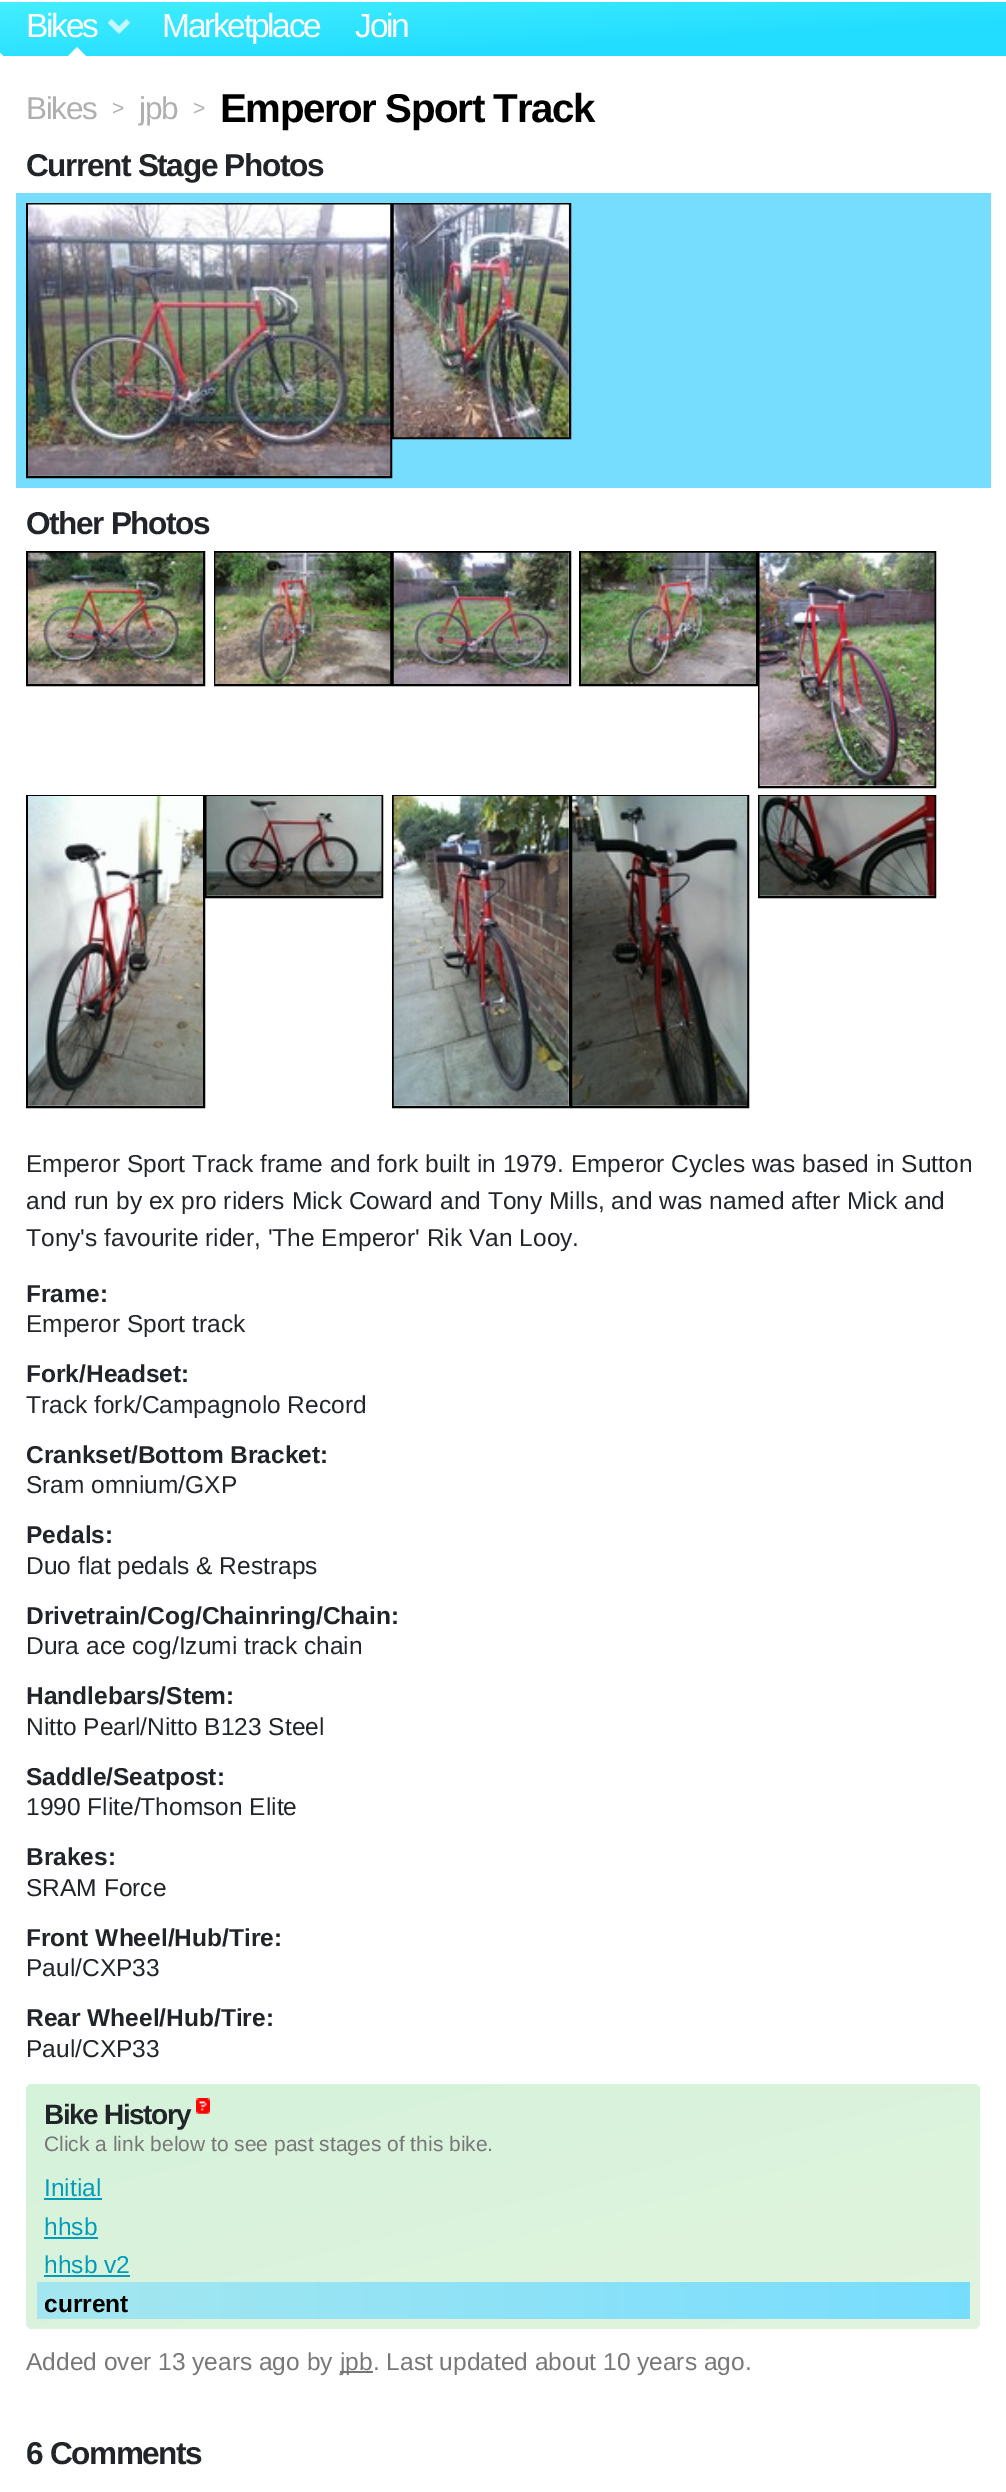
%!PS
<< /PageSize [1006 2492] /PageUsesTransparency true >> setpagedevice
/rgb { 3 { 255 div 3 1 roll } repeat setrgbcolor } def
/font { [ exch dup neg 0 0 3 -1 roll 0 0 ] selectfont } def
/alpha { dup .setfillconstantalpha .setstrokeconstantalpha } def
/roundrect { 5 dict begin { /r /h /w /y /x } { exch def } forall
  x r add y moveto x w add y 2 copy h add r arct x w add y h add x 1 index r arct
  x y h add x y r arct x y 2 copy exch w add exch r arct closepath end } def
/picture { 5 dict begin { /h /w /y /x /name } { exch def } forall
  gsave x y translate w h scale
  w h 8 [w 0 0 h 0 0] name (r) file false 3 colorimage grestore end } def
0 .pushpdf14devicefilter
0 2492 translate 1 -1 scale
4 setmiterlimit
255 255 255 rgb
0 0 1006 2492 rectfill
gsave 0 2 moveto 1006 2 lineto 1006 56 lineto 7 56 lineto 3 56 0 53 0 49 curveto closepath clip newpath
<< /ShadingType 2 /ColorSpace /DeviceRGB /Coords [500 -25 506 83] /Extend [true true] /Function << /FunctionType 3 /Domain [0 1] /Functions [<< /FunctionType 2 /Domain [0 1] /C0 [0.267 0.933 1] /C1 [0.133 0.867 1] /N 1 >> << /FunctionType 2 /Domain [0 1] /C0 [0.133 0.867 1] /C1 [0.133 0.867 1] /N 1 >>] /Bounds [0.7] /Encode [0 1 0 1] >> >> shfill grestore
0.7 alpha
130 23 moveto 119 34 lineto 119 26.5 lineto 126.5 19 lineto closepath 119 34 moveto 108 23 lineto 111.5 19 lineto 119 26.5 lineto closepath fill
1 alpha
86 56 moveto 68 56 lineto 77 47 lineto closepath fill
119 221 255 rgb
16 193 975 295 rectfill
0 0 0 rgb
2 setlinewidth
27 204 364 273 rectstroke
393 204 177 234 rectstroke
(img/1.rgb) 28 204 363 272 picture
(img/2.rgb) 393 204 176 234 picture
27 552 177 133 rectstroke
215 552 176 133 rectstroke
393 552 177 133 rectstroke
580 552 177 133 rectstroke
759 552 176 235 rectstroke
(img/3.rgb) 28 552 175 132 picture
(img/4.rgb) 215 552 176 132 picture
(img/5.rgb) 393 552 176 132 picture
(img/6.rgb) 581 552 175 132 picture
(img/7.rgb) 759 552 176 234 picture
27 796 177 311 rectstroke
206 796 176 101 rectstroke
393 796 177 311 rectstroke
572 796 176 311 rectstroke
759 796 176 101 rectstroke
(img/8.rgb) 28 796 175 310 picture
(img/9.rgb) 206 796 176 100 picture
(img/10.rgb) 393 796 176 310 picture
(img/11.rgb) 572 796 176 310 picture
(img/12.rgb) 759 796 176 100 picture
gsave 26 2084 954 245 7 roundrect clip newpath
<< /ShadingType 2 /ColorSpace /DeviceRGB /Coords [444 1977 562 2437] /Extend [true true] /Function << /FunctionType 2 /Domain [0 1] /C0 [0.835 0.949 0.855] /C1 [0.886 0.957 0.867] /N 1 >> >> shfill grestore
(img/13.rgb) 196 2098 14 16 picture
[
  [44 2198 58 2 0 156 186]
  [44 2237 54 2 0 156 186]
  [44 2275 86 2 0 156 186]
] { aload pop rgb rectfill } forall
gsave 37 2282 moveto 970 2282 lineto 970 2319 lineto 37 2319 lineto closepath clip newpath
<< /ShadingType 2 /ColorSpace /DeviceRGB /Coords [37 2300 970 2300] /Extend [true true] /Function << /FunctionType 2 /Domain [0 1] /C0 [0.647 0.906 0.937] /C1 [0.467 0.867 1] /N 1 >> >> shfill grestore
119 119 119 rgb
340 2371 33 2 rectfill
/LiberationSans-Regular 33.5 font
255 255 255 rgb
26 37 moveto -2.25 0 (Bikes) ashow
162 37 moveto -2.25 0 (Marketplace) ashow
355 37 moveto -2.25 0 (Join) ashow
/LiberationSans-Regular 31.5 font
175 175 175 rgb
26 119 moveto -1.4 0 (Bikes) ashow
/LiberationSans-Regular 21 font
112 115 moveto -1.4 0 (>) ashow
/LiberationSans-Regular 31.5 font
139 119 moveto -1.4 0 (jpb) ashow
/LiberationSans-Regular 21 font
193 115 moveto -1.4 0 (>) ashow
/LiberationSans-Bold 40.25 font
0 0 0 rgb
220 122 moveto -1.4 0 (Emperor Sport Track) ashow
/LiberationSans-Bold 31.6 font
33 37 41 rgb
26 176 moveto -1.4 0 (Current Stage Photos) ashow
26 534 moveto -1.4 0 (Other Photos) ashow
/LiberationSans-Regular 24.5 font
[
  [(Emperor Sport Track frame and fork built in 1979. Emperor Cycles was based in Sutton) 26 1172]
  [(and run by ex pro riders Mick Coward and Tony Mills, and was named after Mick and) 26 1209]
  [(Tony's favourite rider, 'The Emperor' Rik Van Looy.) 26 1246]
] { aload pop moveto show } forall
/LiberationSans-Bold 24.5 font
26 1302 moveto (Frame:) show
/LiberationSans-Regular 24.5 font
26 1332 moveto (Emperor Sport track) show
/LiberationSans-Bold 24.5 font
26 1382 moveto (Fork/Headset:) show
/LiberationSans-Regular 24.5 font
26 1413 moveto (Track fork/Campagnolo Record) show
/LiberationSans-Bold 24.5 font
26 1463 moveto (Crankset/Bottom Bracket:) show
/LiberationSans-Regular 24.5 font
26 1493 moveto (Sram omnium/GXP) show
/LiberationSans-Bold 24.5 font
26 1543 moveto (Pedals:) show
/LiberationSans-Regular 24.5 font
26 1574 moveto (Duo flat pedals & Restraps) show
/LiberationSans-Bold 24.5 font
26 1624 moveto (Drivetrain/Cog/Chainring/Chain:) show
/LiberationSans-Regular 24.5 font
26 1654 moveto (Dura ace cog/Izumi track chain) show
/LiberationSans-Bold 24.5 font
26 1704 moveto (Handlebars/Stem:) show
/LiberationSans-Regular 24.5 font
26 1735 moveto (Nitto Pearl/Nitto B123 Steel) show
/LiberationSans-Bold 24.5 font
26 1785 moveto (Saddle/Seatpost:) show
/LiberationSans-Regular 24.5 font
26 1815 moveto (1990 Flite/Thomson Elite) show
/LiberationSans-Bold 24.5 font
26 1865 moveto (Brakes:) show
/LiberationSans-Regular 24.5 font
26 1896 moveto (SRAM Force) show
/LiberationSans-Bold 24.5 font
26 1946 moveto (Front Wheel/Hub/Tire:) show
/LiberationSans-Regular 24.5 font
26 1976 moveto (Paul/CXP33) show
/LiberationSans-Bold 24.5 font
26 2026 moveto (Rear Wheel/Hub/Tire:) show
/LiberationSans-Regular 24.5 font
26 2057 moveto (Paul/CXP33) show
/LiberationSans-Bold 28 font
44 2124 moveto -1.4 0 (Bike History) ashow
/LiberationSans-Regular 21 font
119 119 119 rgb
44 2151 moveto (Click a link below to see past stages of this bike.) show
/LiberationSans-Regular 24.5 font
0 156 186 rgb
[
  [(Initial) 44 2196]
  [(hhsb) 44 2235]
  [(hhsb v2) 44 2273]
] { aload pop moveto show } forall
/LiberationSans-Bold 24.5 font
0 0 0 rgb
44 2312 moveto (current) show
/LiberationSans-Regular 24.5 font
119 119 119 rgb
26 2370 moveto (Added over 13 years ago by) show
340 2370 moveto (jpb. Last updated about 10 years ago.) show
/LiberationSans-Bold 31.6 font
33 37 41 rgb
26 2464 moveto -1.4 0 (6 Comments) ashow
.poppdf14devicefilter showpage
